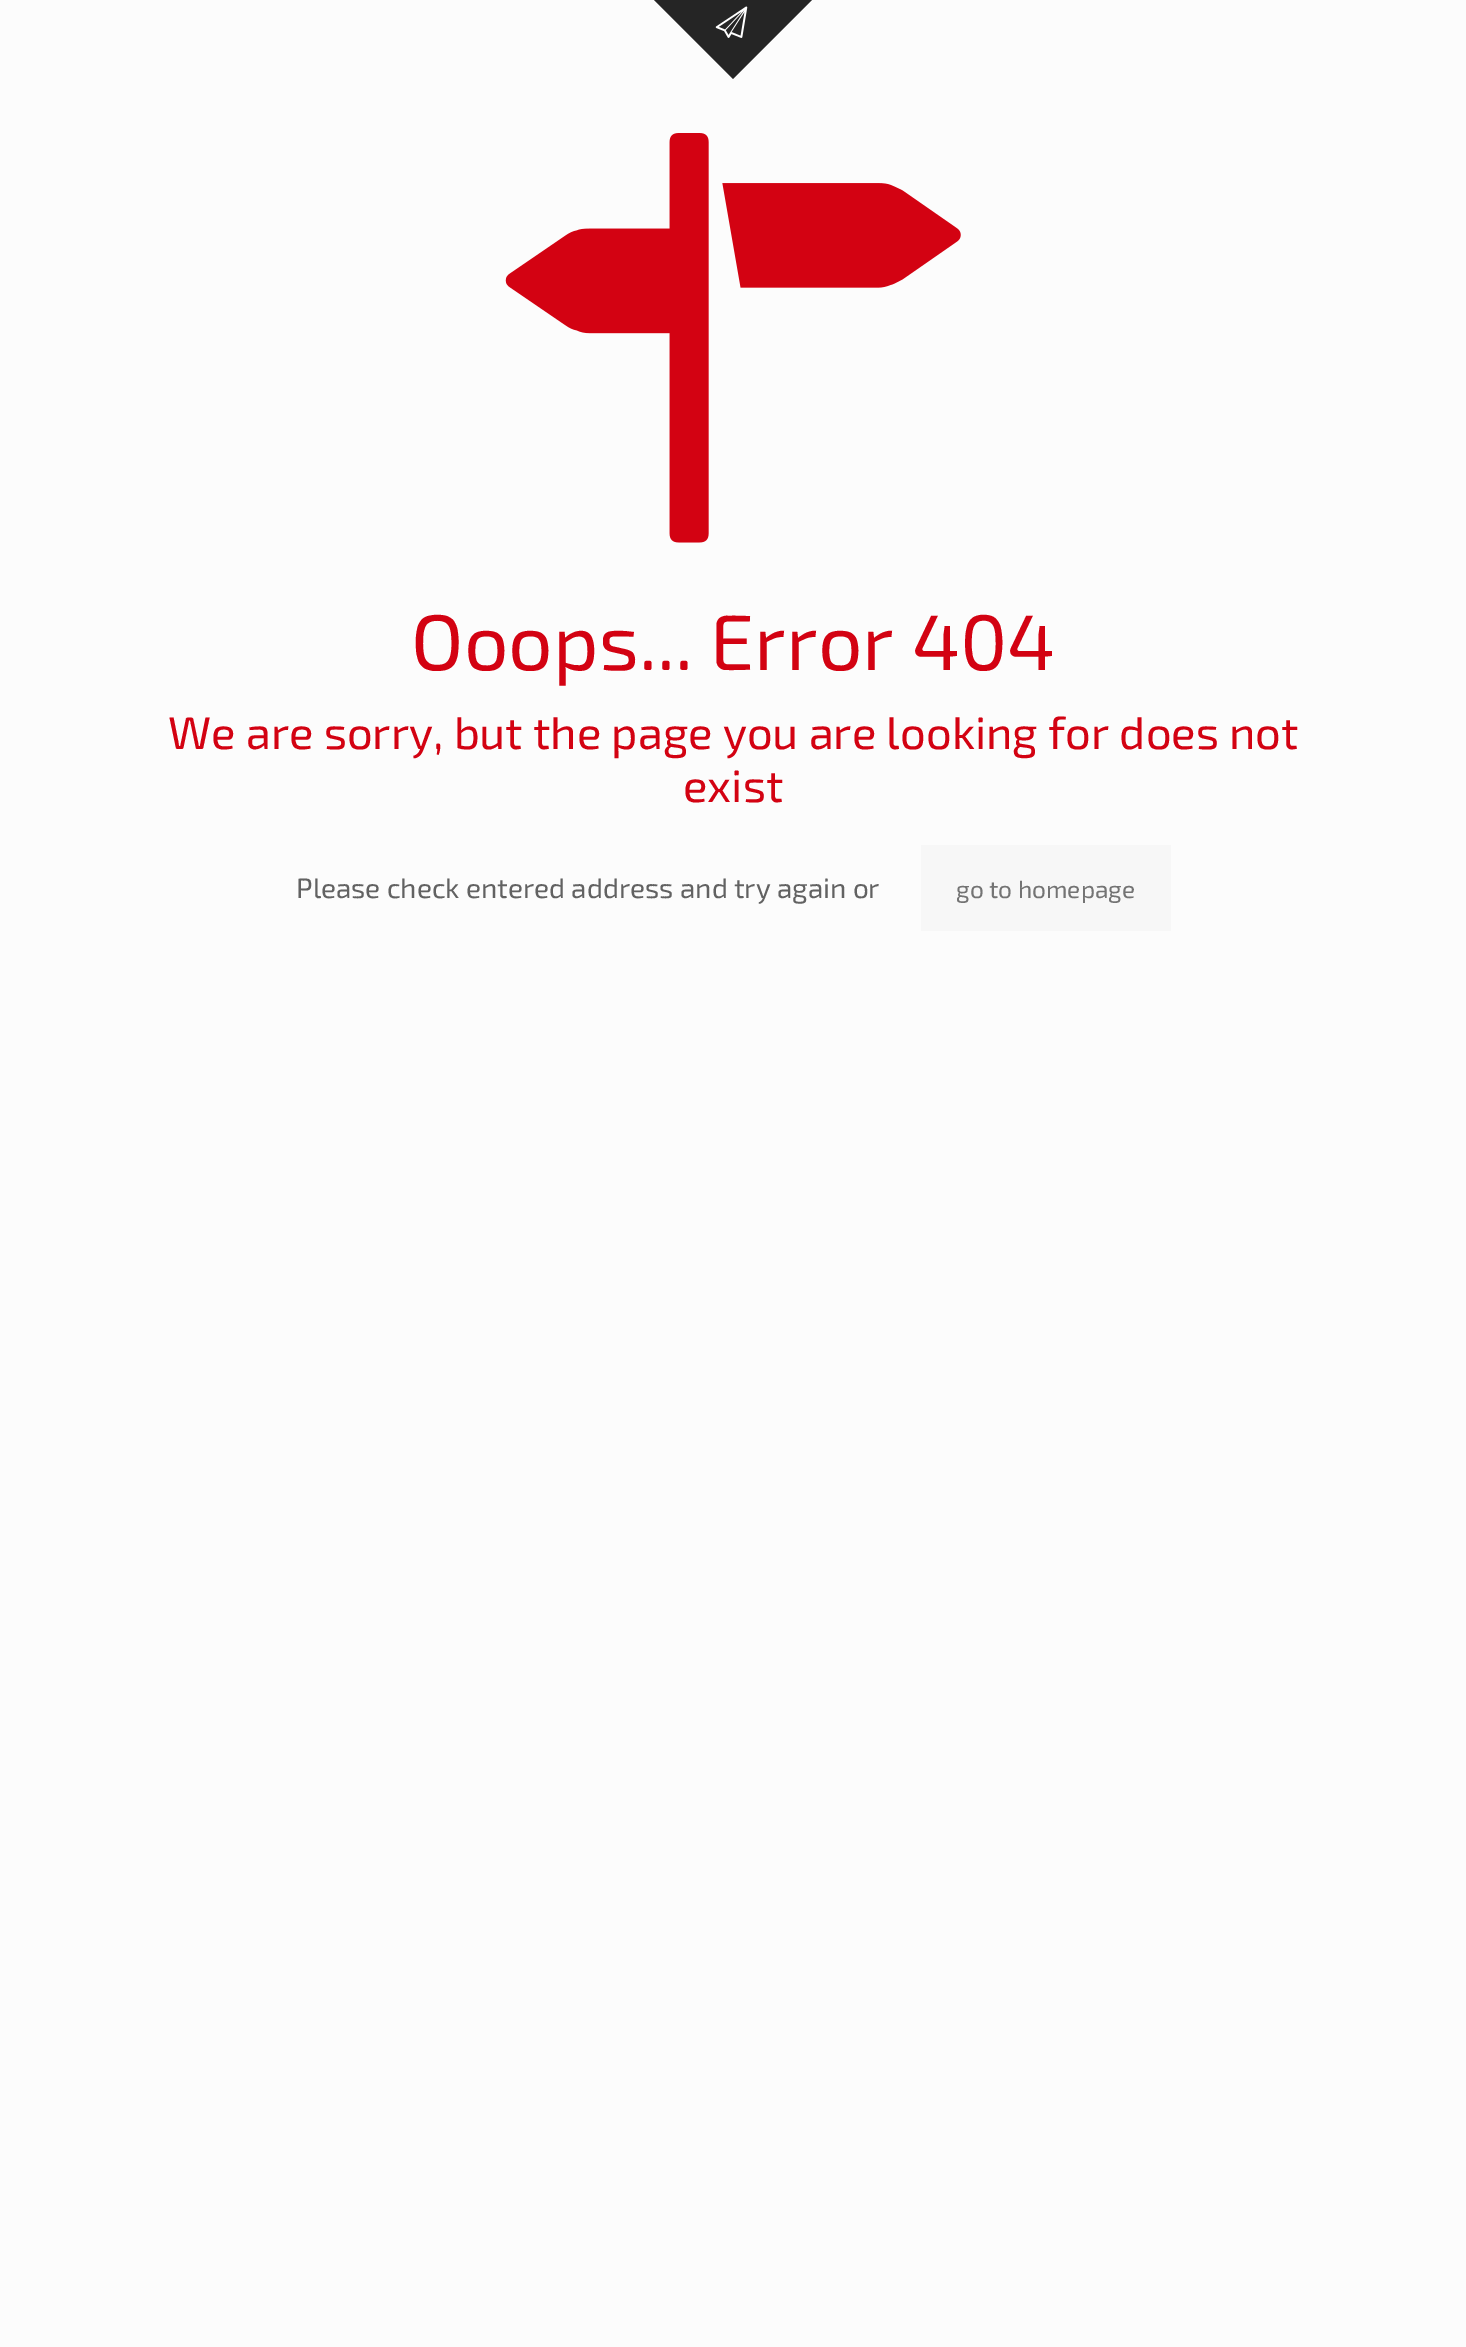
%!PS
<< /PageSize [1466 2347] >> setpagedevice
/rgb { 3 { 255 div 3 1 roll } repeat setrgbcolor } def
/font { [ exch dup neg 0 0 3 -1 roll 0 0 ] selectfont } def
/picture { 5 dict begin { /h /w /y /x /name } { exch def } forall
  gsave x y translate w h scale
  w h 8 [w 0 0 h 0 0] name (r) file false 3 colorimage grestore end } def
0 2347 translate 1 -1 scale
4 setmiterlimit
252 252 252 rgb
0 0 1466 2347 rectfill
37 37 37 rgb
654 0 moveto 812 0 lineto 733 79 lineto closepath fill
(img/1.rgb) 715 6 33 32 picture
(img/2.rgb) 505 133 456 410 picture
247 247 247 rgb
921 845 250 86 rectfill
/Exo2-Regular 78.75 font
211 2 18 rgb
411 670 moveto (Ooops... Error 404) show
/Exo2-Regular 45.5 font
168 749 moveto (We are sorry, but the page you are looking for does not) show
683 802 moveto (exist) show
/Exo2-Regular 28 font
98 98 98 rgb
296 898 moveto (Please check entered address and try again or) show
/Exo2-Regular 24.5 font
116 116 116 rgb
956 898 moveto (go to homepage) show
showpage
